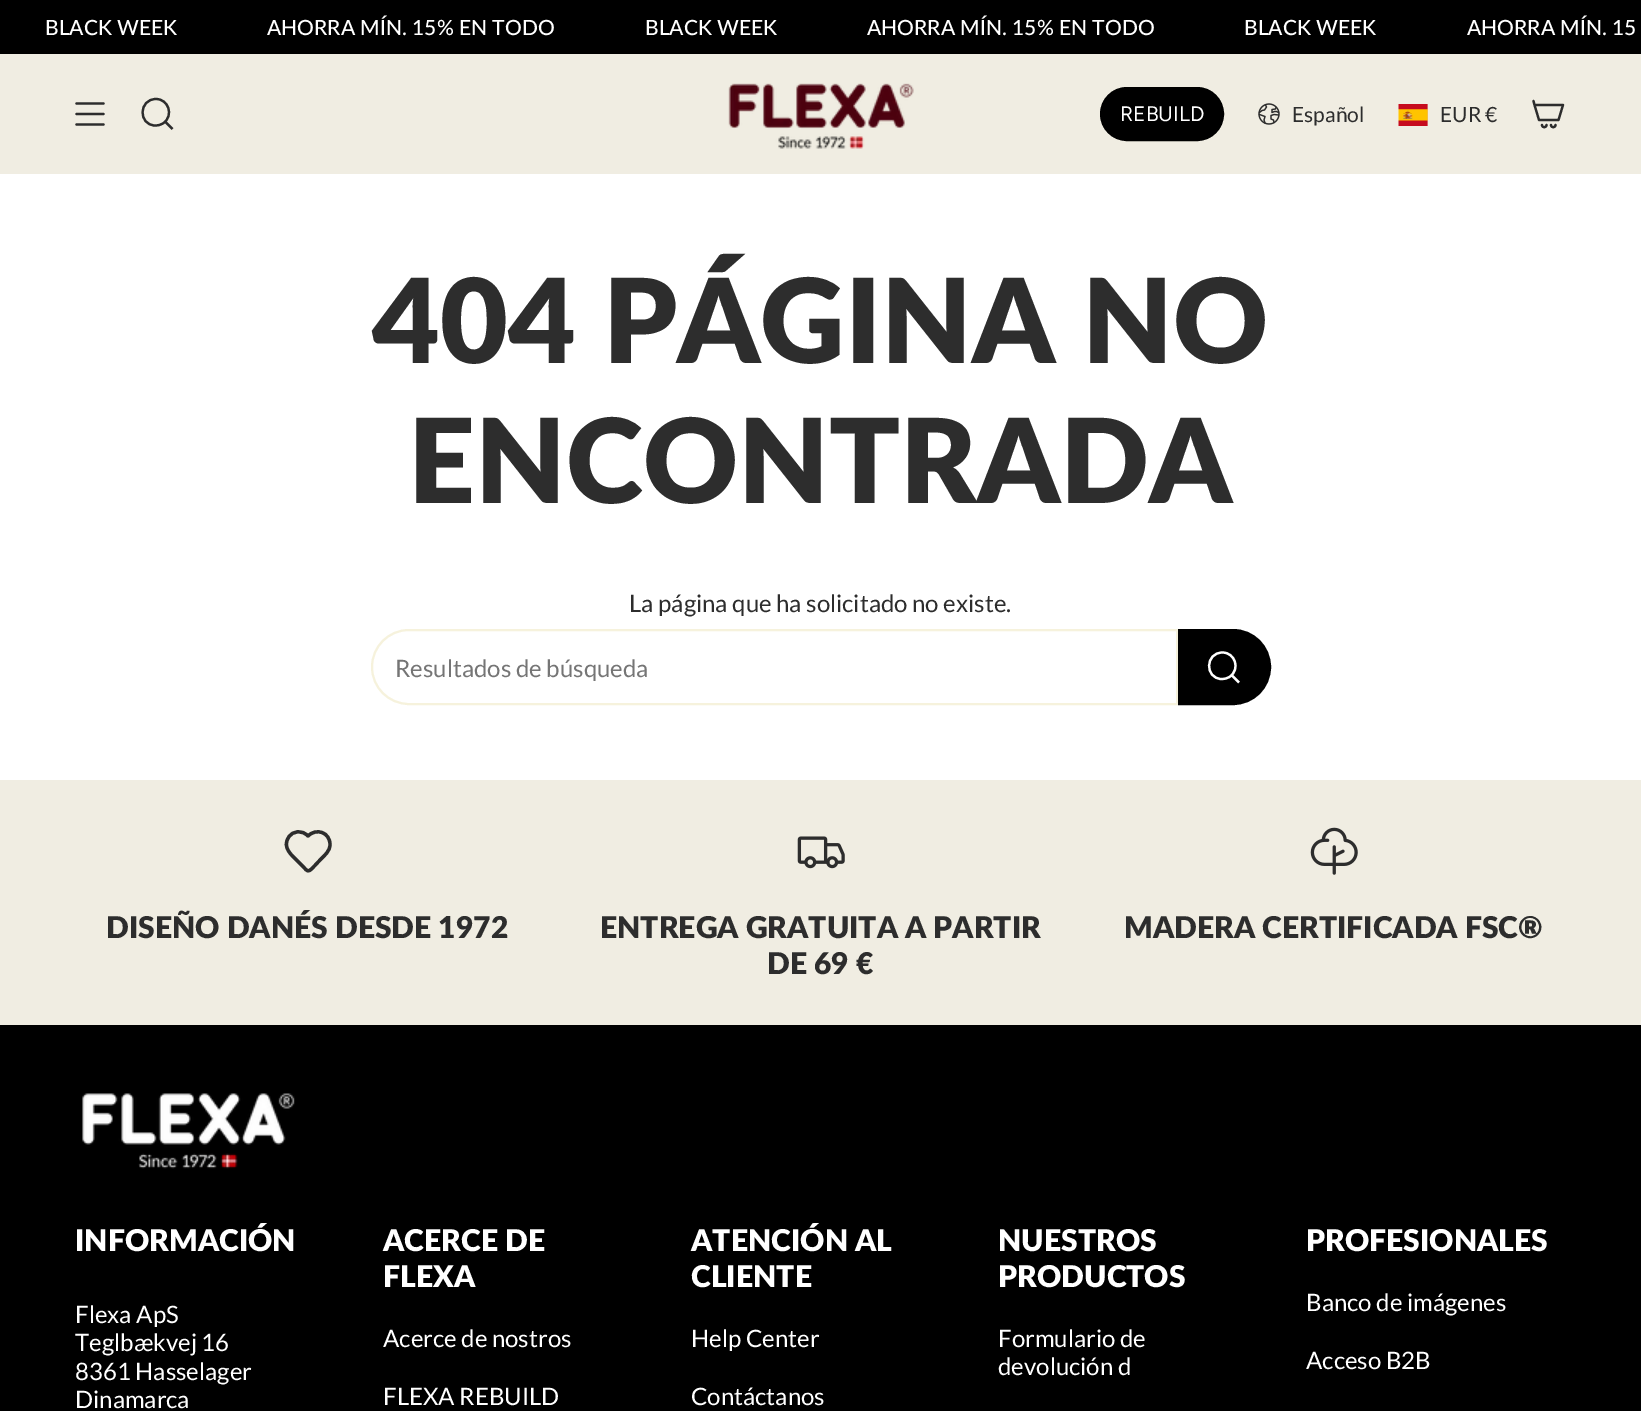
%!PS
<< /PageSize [1641 1411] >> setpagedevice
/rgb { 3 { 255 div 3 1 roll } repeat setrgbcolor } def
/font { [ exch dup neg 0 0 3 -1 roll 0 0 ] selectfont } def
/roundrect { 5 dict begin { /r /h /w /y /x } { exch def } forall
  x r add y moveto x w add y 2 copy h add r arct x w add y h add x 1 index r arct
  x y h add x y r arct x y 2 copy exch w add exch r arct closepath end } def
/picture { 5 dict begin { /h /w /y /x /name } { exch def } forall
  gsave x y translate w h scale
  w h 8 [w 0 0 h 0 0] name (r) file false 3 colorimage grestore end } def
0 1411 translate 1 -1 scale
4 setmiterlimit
255 255 255 rgb
0 0 1641 1411 rectfill
0 0 0 rgb
0 0 1641 54 rectfill
240 237 226 rgb
0 54 1641 120 rectfill
45 45 45 rgb
2.2 setlinewidth
1 setlinecap
1 setlinejoin
76.5 103.5 moveto 103.5 103.5 lineto 76.5 114 moveto 103.5 114 lineto 76.5 124.5 moveto 103.5 124.5 lineto stroke
0 setlinecap
0 setlinejoin
156 99 moveto 168.5 99 174 115.5 163.5 123 curveto 161 125 158 125.5 155 125.5 curveto 138 125 138.5 99 156 99 curveto closepath 165 121.5 moveto 172.5 129 lineto stroke
(img/1.rgb) 728 83 186 66 picture
0 0 0 rgb
1101 88 122 52 26 roundrect gsave fill grestore
2 setlinewidth
stroke
(img/2.rgb) 1258 103 22 22 picture
(img/3.rgb) 1398 104 30 22 picture
45 45 45 rgb
2.2 setlinewidth
1 setlinecap
1 setlinejoin
1534.5 105 moveto 1563 105 lineto 1558.5 120 lineto 1539 120 lineto closepath 1534.5 105 moveto 1533.5 101 lineto 1546.5 125 moveto 1546.5 128 1542 128 1542 125 curveto 1555.5 125 moveto 1555.5 128 1551 128 1551 125 curveto stroke
246 242 220 rgb
2 setlinewidth
0 setlinecap
0 setlinejoin
409 630 moveto 1177 630 lineto 1177 704 lineto 409 704 lineto 388.5 704 372 687.5 372 667 curveto 372 646.5 388.5 630 409 630 curveto closepath stroke
0 0 0 rgb
1179 630 moveto 1233 630 lineto 1253.5 630 1270 646.5 1270 667 curveto 1270 687.5 1253.5 704 1233 704 curveto 1179 704 lineto closepath gsave fill grestore
stroke
255 255 255 rgb
2.2 setlinewidth
1222.5 652.5 moveto 1235 652.5 1240.5 669 1230 676.5 curveto 1227.5 678.5 1224.5 679 1221.5 679 curveto 1204.5 678.5 1205 652.5 1222.5 652.5 curveto closepath 1231.5 675 moveto 1239 682.5 lineto stroke
240 237 226 rgb
0 780 1641 245 rectfill
45 45 45 rgb
3.3 setlinewidth
1 setlinejoin
330 844.5 moveto 330 851 325 855 320.5 859.5 curveto 312.5 868 lineto 308 872.5 307.5 871.5 303.5 867 curveto 298 861.5 lineto 291.5 855 282 847.5 288.5 837.5 curveto 293 830 302.5 830 308 836 curveto 316.5 827.5 330 832.5 330 844.5 curveto closepath stroke
(img/4.rgb) 797 836 48 33 picture
(img/5.rgb) 1310 827 48 48 picture
0 0 0 rgb
0 1025 1641 386 rectfill
(img/6.rgb) 82 1093 213 76 picture
/Lato-Medium 21 font
255 255 255 rgb
[
  [(BLACK WEEK) 45 35]
  [(AHORRA MÍN. 15% EN TODO) 267 35]
  [(BLACK WEEK) 645 35]
  [(AHORRA MÍN. 15% EN TODO) 867 35]
  [(BLACK WEEK) 1244 35]
  [(AHORRA MÍN. 15) 1467 35]
] { aload pop moveto show } forall
/Figtree-Regular 21 font
1120 121 moveto (REBUILD) show
/Lato-Regular 21 font
45 45 45 rgb
1292 122 moveto (Español) show
1440 122 moveto (EUR €) show
/Lato-ExtraBold 117 font
372 363 moveto (404 PÁGINA NO) show
408 503 moveto (ENCONTRADA) show
/Lato-Regular 24 font
629 612 moveto (La página que ha solicitado no existe.) show
117 117 117 rgb
395 677 moveto (Resultados de búsqueda) show
/Lato-ExtraBold 30 font
45 45 45 rgb
[
  [(DISEÑO DANÉS DESDE 1972) 106 938]
  [(ENTREGA GRATUITA A PARTIR) 600 938]
  [(DE 69 €) 767 974]
  [(MADERA CERTIFICADA FSC®) 1124 938]
] { aload pop moveto show } forall
255 255 255 rgb
75 1251 moveto (INFORMACIÓN) show
/Lato-Regular 24 font
[
  [(Flexa ApS) 75 1323]
  [(Teglbækvej 16) 75 1351]
  [(8361 Hasselager) 75 1380]
  [(Dinamarca) 75 1408]
] { aload pop moveto show } forall
/Lato-ExtraBold 30 font
383 1251 moveto (ACERCE DE) show
383 1287 moveto (FLEXA) show
/Lato-Regular 24 font
383 1347 moveto (Acerce de nostros) show
383 1405 moveto (FLEXA REBUILD) show
/Lato-ExtraBold 30 font
691 1251 moveto (ATENCIÓN AL) show
691 1287 moveto (CLIENTE) show
/Lato-Regular 24 font
691 1347 moveto (Help Center) show
691 1405 moveto (Contáctanos) show
/Lato-ExtraBold 30 font
998 1251 moveto (NUESTROS) show
998 1287 moveto (PRODUCTOS) show
/Lato-Regular 24 font
998 1347 moveto (Formulario de) show
998 1375 moveto (devolución d) show
/Lato-ExtraBold 30 font
1306 1251 moveto (PROFESIONALES) show
/Lato-Regular 24 font
1306 1311 moveto (Banco de imágenes) show
1306 1369 moveto (Acceso B2B) show
showpage
